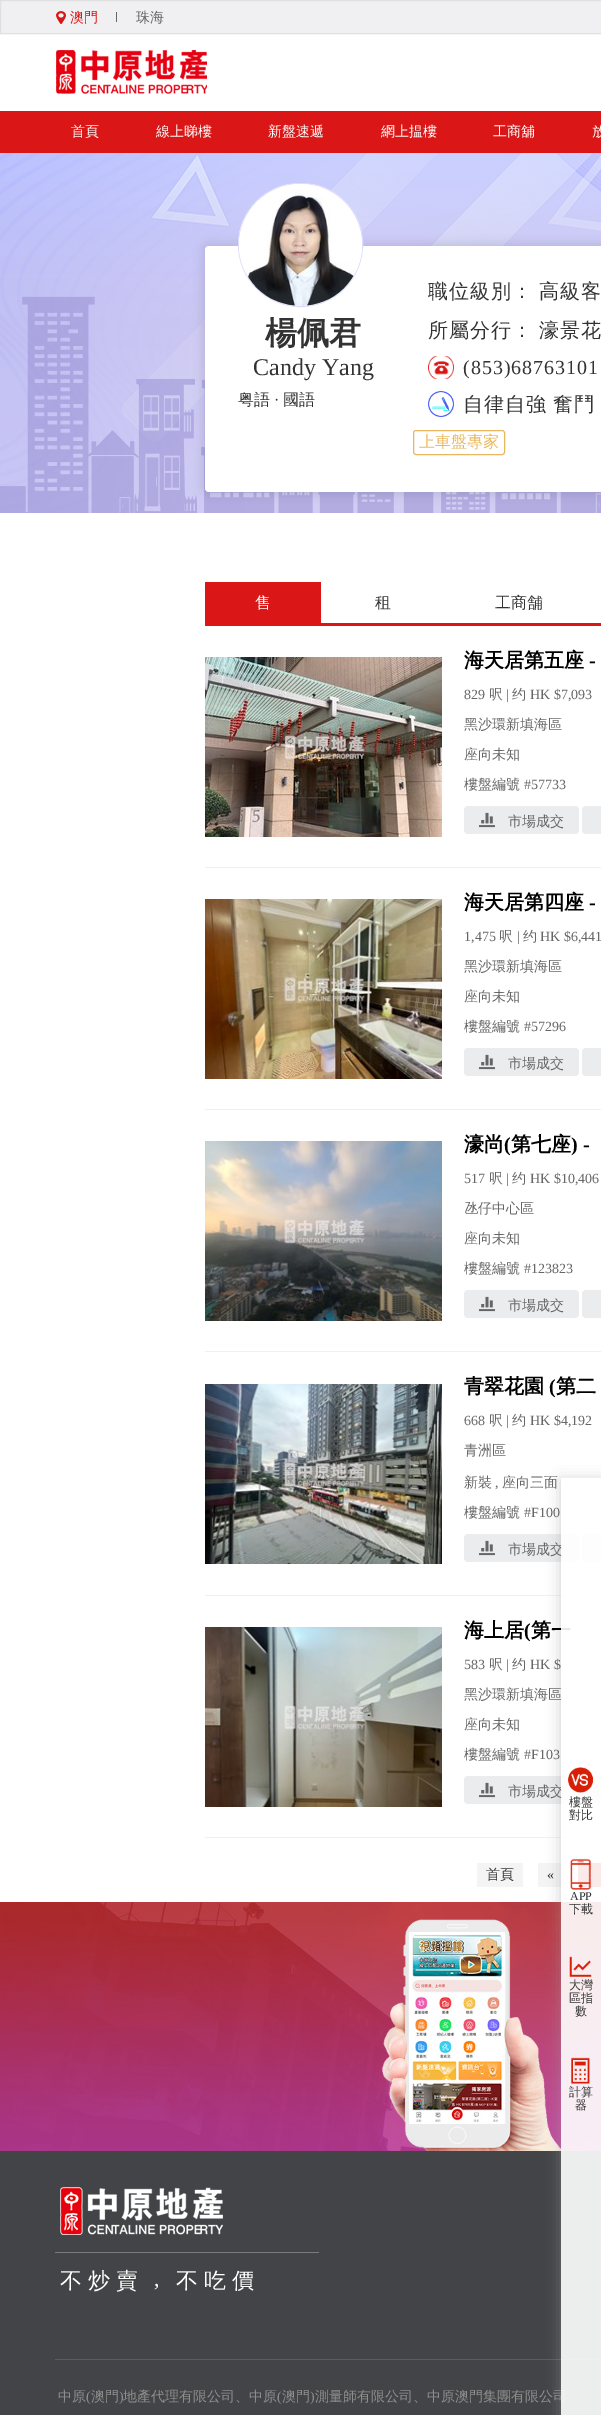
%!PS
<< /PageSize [601 2415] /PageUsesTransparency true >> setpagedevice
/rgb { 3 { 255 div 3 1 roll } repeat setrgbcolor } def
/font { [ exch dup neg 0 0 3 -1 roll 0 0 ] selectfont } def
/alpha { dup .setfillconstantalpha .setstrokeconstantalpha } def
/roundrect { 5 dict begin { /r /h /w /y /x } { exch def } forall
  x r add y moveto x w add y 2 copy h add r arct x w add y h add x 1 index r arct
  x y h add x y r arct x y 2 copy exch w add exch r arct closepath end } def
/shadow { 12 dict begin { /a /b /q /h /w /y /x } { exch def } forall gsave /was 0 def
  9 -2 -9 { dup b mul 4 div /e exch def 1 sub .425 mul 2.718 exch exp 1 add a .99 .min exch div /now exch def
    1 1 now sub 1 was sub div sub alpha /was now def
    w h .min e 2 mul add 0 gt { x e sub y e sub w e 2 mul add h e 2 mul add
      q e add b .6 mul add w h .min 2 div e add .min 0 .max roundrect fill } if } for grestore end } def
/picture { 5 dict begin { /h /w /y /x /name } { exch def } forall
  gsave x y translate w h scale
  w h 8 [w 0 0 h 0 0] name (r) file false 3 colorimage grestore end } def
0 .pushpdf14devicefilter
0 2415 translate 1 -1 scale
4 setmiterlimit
255 255 255 rgb
0 0 601 2415 rectfill
240 240 242 rgb
0.5 0.5 moveto 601.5 0.5 lineto 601.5 33.5 lineto 0.5 33.5 lineto closepath gsave fill grestore
224 224 224 rgb
stroke
(img/1.rgb) 56 11 10 13 picture
102 102 102 rgb
116 12 1 10 rectfill
(img/2.rgb) 56 50 151 44 picture
218 22 22 rgb
0 111 601 42 rectfill
(img/3.rgb) 0 153 601 360 picture
19 20 26 rgb
203 244 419 250 6 5 0.12 shadow
255 255 255 rgb
205 246 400 246 4 roundrect fill
238.5 183.5 124 123 61.5 roundrect gsave fill grestore
222 220 252 rgb
stroke
(img/4.rgb) 239 184 123 122 picture
(img/5.rgb) 428 356 26 23 picture
(img/6.rgb) 428 391 26 26 picture
234 183 94 rgb
413.5 430.5 91 24 2.5 roundrect stroke
[
  [205 623 396 3 218 22 22]
  [205 582 116 41 218 22 22]
  [205 867 396 1 240 240 240]
] { aload pop rgb rectfill } forall
(img/7.rgb) 205 657 237 180 picture
235 236 237 rgb
464 806 115 28 4 roundrect fill
(img/8.rgb) 479 812 16 16 picture
582 806 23 28 4 roundrect fill
240 240 240 rgb
205 1109 396 1 rectfill
(img/9.rgb) 205 899 237 180 picture
235 236 237 rgb
464 1048 115 28 4 roundrect fill
(img/8.rgb) 479 1054 16 16 picture
582 1048 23 28 4 roundrect fill
240 240 240 rgb
205 1351 396 1 rectfill
(img/10.rgb) 205 1141 237 180 picture
235 236 237 rgb
464 1290 115 28 4 roundrect fill
(img/8.rgb) 479 1296 16 16 picture
582 1290 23 28 4 roundrect fill
240 240 240 rgb
205 1595 396 1 rectfill
(img/11.rgb) 205 1384 237 180 picture
235 236 237 rgb
464 1534 115 28 4 roundrect fill
(img/8.rgb) 479 1540 16 16 picture
582 1534 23 28 4 roundrect fill
240 240 240 rgb
205 1837 396 1 rectfill
(img/12.rgb) 205 1627 237 180 picture
235 236 237 rgb
464 1776 115 28 4 roundrect fill
(img/8.rgb) 479 1782 16 16 picture
582 1776 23 28 4 roundrect fill
[
  [477 1863 46 24 244 244 244]
  [538 1863 25 24 244 244 244]
  [578 1863 23 24 219 41 45]
] { aload pop rgb rectfill } forall
(img/17.rgb) 0 1902 601 249 picture
66 68 71 rgb
0 2151 601 264 rectfill
92 92 92 rgb
55 2359 546 1 rectfill
gsave
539 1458 moveto 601 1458 lineto 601 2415 lineto 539 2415 lineto closepath 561 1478 moveto 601 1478 lineto 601 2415 lineto 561 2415 lineto closepath eoclip newpath
156 156 156 rgb
561 1480 40 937 0 7 0.5 shadow
grestore
(img/18.rgb) 60 2187 163 48 picture
123 124 127 rgb
55 2252 264 1 rectfill
/WenQuanYiZenHei-Medium 14 font
218 22 22 rgb
70 22 moveto (澳門) show
102 102 102 rgb
136 22 moveto (珠海) show
255 255 255 rgb
[
  [(首頁) 71 136]
  [(線上睇樓) 156 136]
  [(新盤速遞) 268 136]
  [(網上揾樓) 381 136]
  [(工商舖) 493 136]
  [(放) 592 136]
] { aload pop moveto show } forall
/WenQuanYiZenHei-Bold 32 font
51 51 51 rgb
265 344 moveto (楊佩君) show
/LiberationSerif-Regular 24 font
253 375 moveto (Candy Yang) show
/WenQuanYiZenHei-Medium 16 font
238 405 moveto (粤語) show
/LiberationSerif-Regular 16 font
274 405 moveto (·) show
/WenQuanYiZenHei-Medium 16 font
283 405 moveto (國語) show
/WenQuanYiZenHei-Medium 20 font
428 298 moveto 1 0 (職位級別：) ashow
539 298 moveto 1 0 (高級客) ashow
428 337 moveto 1 0 (所屬分行：) ashow
539 337 moveto 1 0 (濠景花) ashow
/LiberationSerif-Regular 20 font
463 374 moveto 1 0 (\(853\)68763101) ashow
/WenQuanYiZenHei-Medium 20 font
463 411 moveto -1 0 32 1 0 (自律自強 奮鬥) awidthshow
/WenQuanYiZenHei-Medium 16 font
234 183 94 rgb
419 447 moveto (上車盤專家) show
255 255 255 rgb
255 608 moveto (售) show
51 51 51 rgb
375 608 moveto (租) show
495 608 moveto (工商舗) show
/WenQuanYiZenHei-Bold 20 font
0 0 0 rgb
464 667 moveto (海天居第五座) show
/LiberationSerif-Bold 20 font
589 667 moveto (-) show
/LiberationSerif-Regular 14 font
102 102 102 rgb
464 699 moveto (829) show
/WenQuanYiZenHei-Medium 14 font
489 699 moveto (呎) show
/LiberationSerif-Regular 14 font
506 699 moveto (|) show
/WenQuanYiZenHei-Medium 14 font
512 699 moveto (约) show
/LiberationSerif-Regular 14 font
530 699 moveto (HK $7,093) show
/WenQuanYiZenHei-Medium 14 font
[
  [(黑沙環新填海區) 464 729]
  [(座向未知) 464 759]
  [(樓盤編號) 464 789]
] { aload pop moveto show } forall
/LiberationSerif-Regular 14 font
524 789 moveto (#57733) show
/WenQuanYiZenHei-Medium 14 font
508 826 moveto (市場成交) show
/WenQuanYiZenHei-Bold 20 font
0 0 0 rgb
464 909 moveto (海天居第四座) show
/LiberationSerif-Bold 20 font
589 909 moveto (-) show
/LiberationSerif-Regular 14 font
102 102 102 rgb
464 941 moveto (1,475) show
/WenQuanYiZenHei-Medium 14 font
499 941 moveto (呎) show
/LiberationSerif-Regular 14 font
517 941 moveto (|) show
/WenQuanYiZenHei-Medium 14 font
523 941 moveto (约) show
/LiberationSerif-Regular 14 font
540 941 moveto (HK $6,441) show
/WenQuanYiZenHei-Medium 14 font
[
  [(黑沙環新填海區) 464 971]
  [(座向未知) 464 1001]
  [(樓盤編號) 464 1031]
] { aload pop moveto show } forall
/LiberationSerif-Regular 14 font
524 1031 moveto (#57296) show
/WenQuanYiZenHei-Medium 14 font
508 1068 moveto (市場成交) show
/WenQuanYiZenHei-Bold 20 font
0 0 0 rgb
464 1151 moveto (濠尚) show
/LiberationSerif-Bold 20 font
504 1151 moveto (\() show
/WenQuanYiZenHei-Bold 20 font
511 1151 moveto (第七座) show
/LiberationSerif-Bold 20 font
571 1151 moveto (\) -) show
/LiberationSerif-Regular 14 font
102 102 102 rgb
464 1183 moveto (517) show
/WenQuanYiZenHei-Medium 14 font
489 1183 moveto (呎) show
/LiberationSerif-Regular 14 font
506 1183 moveto (|) show
/WenQuanYiZenHei-Medium 14 font
512 1183 moveto (约) show
/LiberationSerif-Regular 14 font
530 1183 moveto (HK $10,406) show
/WenQuanYiZenHei-Medium 14 font
[
  [(氹仔中心區) 464 1213]
  [(座向未知) 464 1243]
  [(樓盤編號) 464 1273]
] { aload pop moveto show } forall
/LiberationSerif-Regular 14 font
524 1273 moveto (#123823) show
/WenQuanYiZenHei-Medium 14 font
508 1310 moveto (市場成交) show
/WenQuanYiZenHei-Bold 20 font
0 0 0 rgb
464 1393 moveto (青翠花園) show
/LiberationSerif-Bold 20 font
549 1393 moveto (\() show
/WenQuanYiZenHei-Bold 20 font
556 1393 moveto (第二) show
/LiberationSerif-Regular 14 font
102 102 102 rgb
464 1425 moveto (668) show
/WenQuanYiZenHei-Medium 14 font
489 1425 moveto (呎) show
/LiberationSerif-Regular 14 font
506 1425 moveto (|) show
/WenQuanYiZenHei-Medium 14 font
512 1425 moveto (约) show
/LiberationSerif-Regular 14 font
530 1425 moveto (HK $4,192) show
/WenQuanYiZenHei-Medium 14 font
464 1455 moveto (青洲區) show
464 1487 moveto (新裝) show
/LiberationSerif-Regular 14 font
495 1487 moveto (,) show
/WenQuanYiZenHei-Medium 14 font
502 1487 moveto (座向三面) show
464 1517 moveto (樓盤編號) show
/LiberationSerif-Regular 14 font
524 1517 moveto (#F100) show
/WenQuanYiZenHei-Medium 14 font
508 1554 moveto (市場成交) show
/WenQuanYiZenHei-Bold 20 font
0 0 0 rgb
464 1637 moveto (海上居) show
/LiberationSerif-Bold 20 font
524 1637 moveto (\() show
/WenQuanYiZenHei-Bold 20 font
531 1637 moveto (第一) show
/LiberationSerif-Regular 14 font
102 102 102 rgb
464 1669 moveto (583) show
/WenQuanYiZenHei-Medium 14 font
489 1669 moveto (呎) show
/LiberationSerif-Regular 14 font
506 1669 moveto (|) show
/WenQuanYiZenHei-Medium 14 font
512 1669 moveto (约) show
/LiberationSerif-Regular 14 font
530 1669 moveto (HK $) show
/WenQuanYiZenHei-Medium 14 font
[
  [(黑沙環新填海區) 464 1699]
  [(座向未知) 464 1729]
  [(樓盤編號) 464 1759]
] { aload pop moveto show } forall
/LiberationSerif-Regular 14 font
524 1759 moveto (#F103) show
/WenQuanYiZenHei-Medium 14 font
508 1796 moveto (市場成交) show
51 51 51 rgb
486 1879 moveto (首頁) show
/LiberationSerif-Regular 14 font
547 1879 moveto («) show
/WenQuanYiZenHei-Medium 22 font
255 255 255 rgb
60 2288 moveto 6 0 (不炒賣) ashow
/LiberationSerif-Regular 22 font
154 2286 moveto 6 0 (,) ashow
/WenQuanYiZenHei-Medium 22 font
176 2288 moveto 6 0 (不吃價) ashow
/WenQuanYiZenHei-Medium 14 font
143 142 142 rgb
58 2401 moveto (中原) show
/LiberationSerif-Regular 14 font
86 2401 moveto (\() show
/WenQuanYiZenHei-Medium 14 font
91 2401 moveto (澳門) show
/LiberationSerif-Regular 14 font
119 2401 moveto (\)) show
/WenQuanYiZenHei-Medium 14 font
123 2401 moveto (地產代理有限公司、中原) show
/LiberationSerif-Regular 14 font
277 2401 moveto (\() show
/WenQuanYiZenHei-Medium 14 font
282 2401 moveto (澳門) show
/LiberationSerif-Regular 14 font
310 2401 moveto (\)) show
/WenQuanYiZenHei-Medium 14 font
315 2401 moveto (測量師有限公司、中原澳門集團有限公司) show
0.9 alpha
255 255 255 rgb
561 1534 40 881 rectfill
1 alpha
(img/16.rgb) 571 2057 19 27 picture
(img/15.rgb) 569 1956 23 21 picture
(img/14.rgb) 570 1858 22 32 picture
(img/13.rgb) 568 1767 25 26 picture
/WenQuanYiZenHei-Medium 12 font
51 51 51 rgb
[
  [(器) 575 2109]
  [(計算) 569 2096]
  [(數) 575 2015]
  [(區指) 569 2002]
  [(大灣) 569 1989]
  [(下載) 569 1913]
] { aload pop moveto show } forall
/LiberationSerif-Regular 12 font
570 1900 moveto (APP) show
/WenQuanYiZenHei-Medium 12 font
569 1819 moveto (對比) show
569 1806 moveto (樓盤) show
.poppdf14devicefilter showpage
